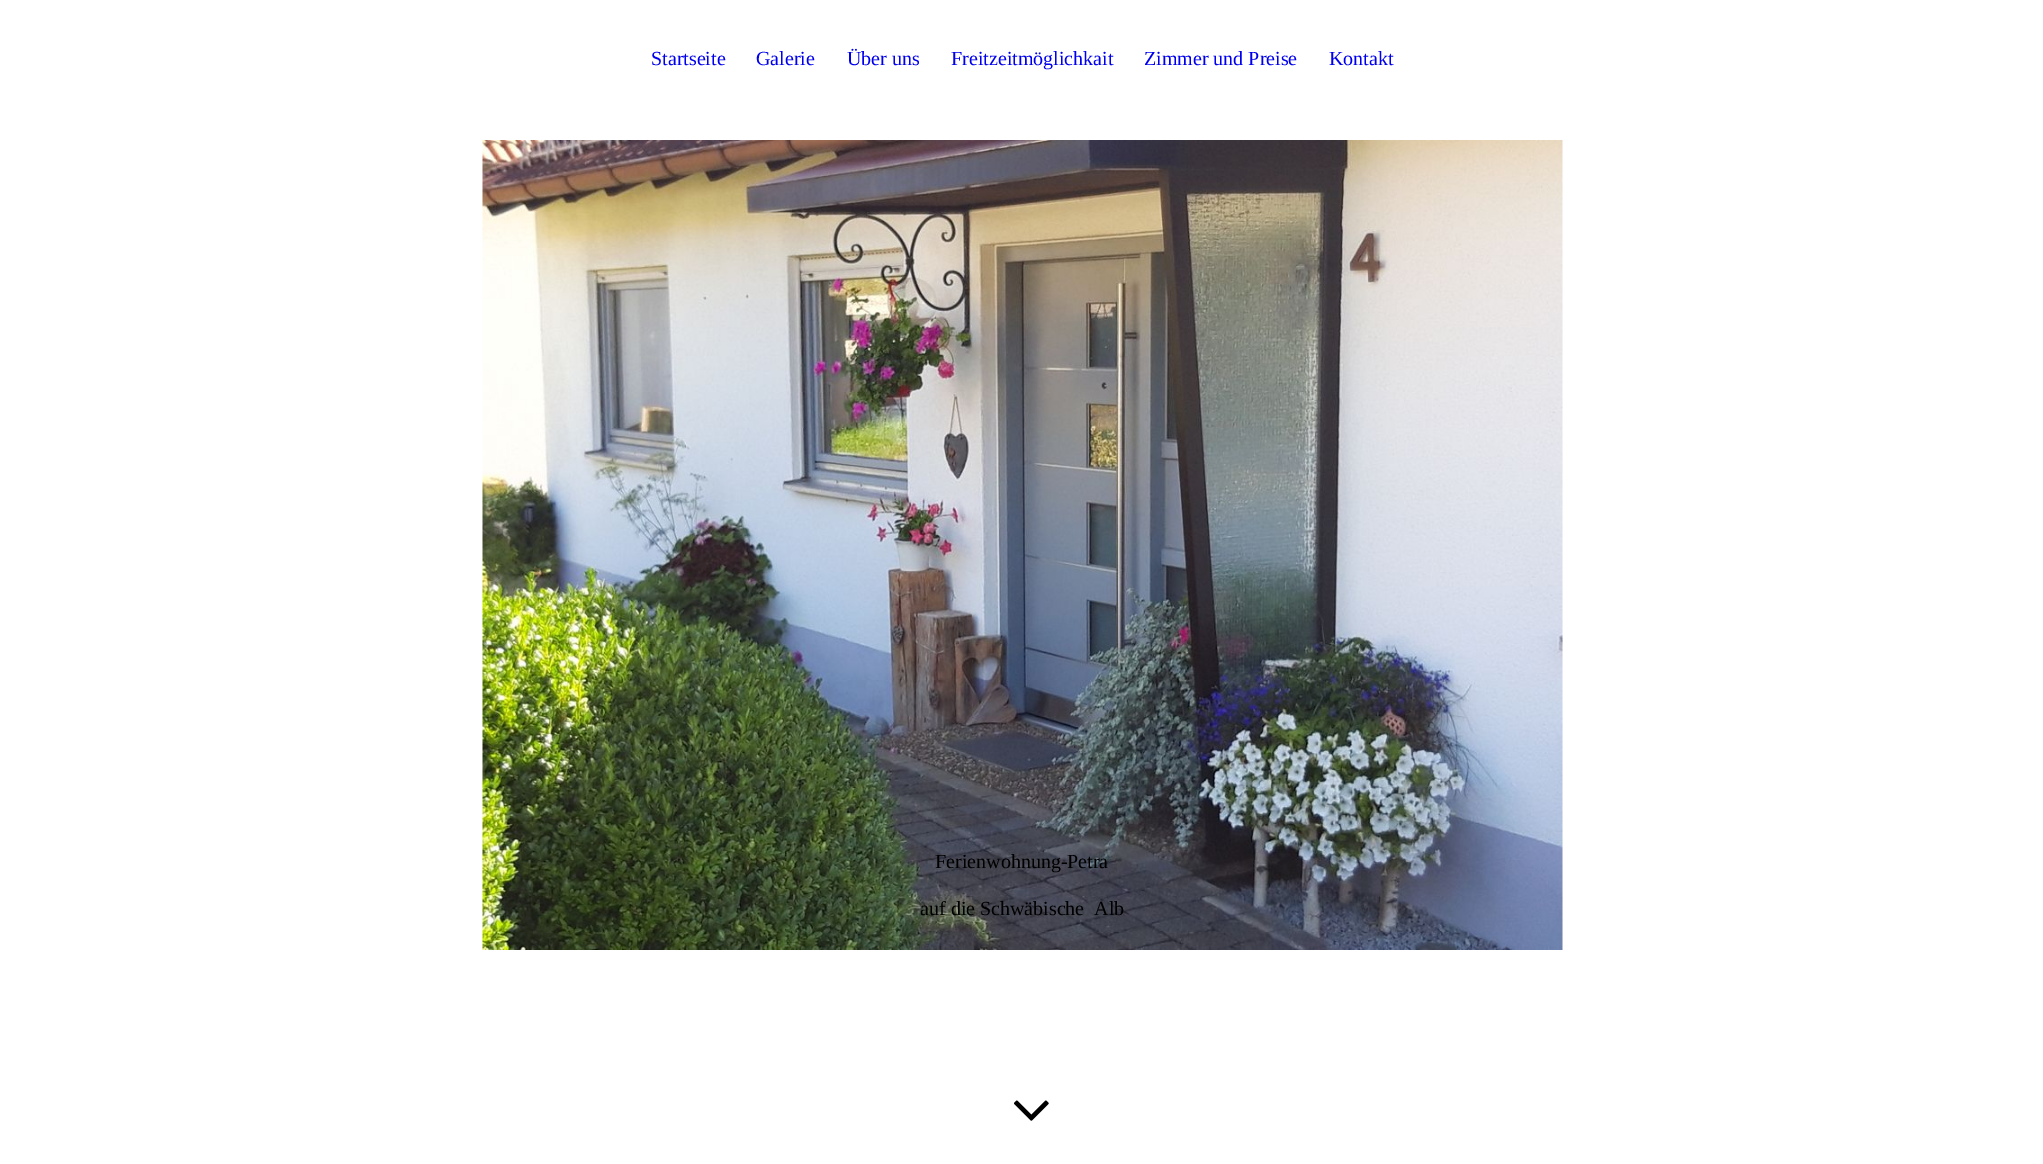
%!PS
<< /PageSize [2043 1164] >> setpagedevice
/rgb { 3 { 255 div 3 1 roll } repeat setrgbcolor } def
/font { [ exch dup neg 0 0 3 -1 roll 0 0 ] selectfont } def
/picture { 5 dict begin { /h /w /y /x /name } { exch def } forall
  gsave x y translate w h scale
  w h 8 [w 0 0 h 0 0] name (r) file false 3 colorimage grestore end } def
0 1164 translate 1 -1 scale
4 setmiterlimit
255 255 255 rgb
0 0 2043 1164 rectfill
(img/1.rgb) 482 140 1081 810 picture
(img/2.rgb) 1014 1100 35 21 picture
/LiberationSerif-Regular 20 font
0 0 238 rgb
[
  [(Startseite) 651 65]
  [(Galerie) 756 65]
  [(Über uns) 847 65]
  [(Freitzeitmöglichkait) 951 65]
  [(Zimmer und Preise) 1144 65]
  [(Kontakt) 1329 65]
] { aload pop moveto show } forall
0 0 0 rgb
935 868 moveto (Ferienwohnung-Petra) show
920 915 moveto (auf die Schwäbische  Alb) show
showpage
